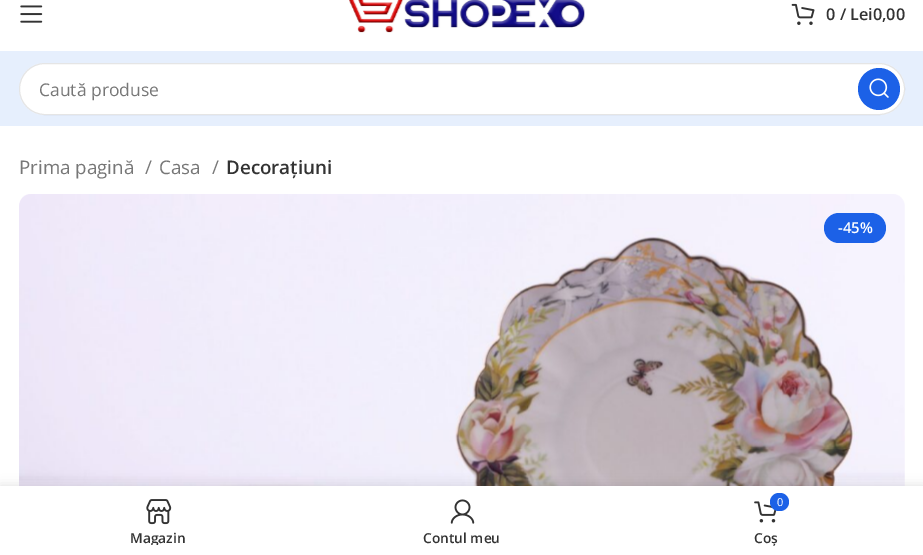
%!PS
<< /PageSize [923 555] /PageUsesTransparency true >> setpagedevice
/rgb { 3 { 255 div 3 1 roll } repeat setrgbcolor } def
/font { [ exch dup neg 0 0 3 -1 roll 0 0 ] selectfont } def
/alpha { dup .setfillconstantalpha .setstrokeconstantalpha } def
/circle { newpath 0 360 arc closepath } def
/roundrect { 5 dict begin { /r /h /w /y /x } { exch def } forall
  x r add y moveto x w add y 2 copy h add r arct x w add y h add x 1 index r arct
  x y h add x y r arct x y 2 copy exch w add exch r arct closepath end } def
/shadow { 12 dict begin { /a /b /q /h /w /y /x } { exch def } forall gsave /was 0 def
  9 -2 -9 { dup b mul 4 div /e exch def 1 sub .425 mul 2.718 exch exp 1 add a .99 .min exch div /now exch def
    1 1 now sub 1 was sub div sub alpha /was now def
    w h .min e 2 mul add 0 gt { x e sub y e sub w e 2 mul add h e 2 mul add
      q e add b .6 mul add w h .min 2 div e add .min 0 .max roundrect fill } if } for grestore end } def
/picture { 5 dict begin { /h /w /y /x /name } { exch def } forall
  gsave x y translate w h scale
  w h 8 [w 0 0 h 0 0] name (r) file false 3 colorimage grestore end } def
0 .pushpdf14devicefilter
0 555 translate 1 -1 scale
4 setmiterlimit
255 255 255 rgb
0 0 923 555 rectfill
(img/1.rgb) 20 5 23 18 picture
(img/2.rgb) 349 0 236 33 picture
(img/3.rgb) 791 3 24 22 picture
230 239 253 rgb
0 51 923 75 rectfill
255 255 255 rgb
19 63 886 52 26 roundrect fill
0.1 alpha
0 0 0 rgb
19.5 63.5 885 51 25.5 roundrect stroke
1 alpha
28 97 231 rgb
879 89 21 circle fill
(img/4.rgb) 869 78 20 20 picture
(img/5.rgb) 19 194 886 292 picture
824 213 62 30 15 roundrect fill
0 0 0 rgb
0 486 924 69 0 5.5 0.12 shadow
255 255 255 rgb
0 486 923 69 rectfill
(img/6.rgb) 146 499 26 26 picture
(img/7.rgb) 450 499 25 25 picture
(img/8.rgb) 754 501 23 22 picture
28 97 231 rgb
770 493 19 18 9 roundrect fill
/OpenSans-SemiBold 16.25 font
51 51 51 rgb
826 20 moveto (0 / Lei0,00) show
/OpenSans-Regular 17.5 font
119 119 119 rgb
39 96 moveto (Caută produse) show
/OpenSans-Regular 18.75 font
[
  [(Prima pagină) 19 174]
  [(/) 145 174]
  [(Casa) 159 174]
  [(/) 212 174]
] { aload pop moveto show } forall
/OpenSans-SemiBold 18.75 font
51 51 51 rgb
226 174 moveto (Decorațiuni) show
/OpenSans-SemiBold 15 font
255 255 255 rgb
838 233 moveto (-45%) show
gsave
19 529 279 16 rectclip
/OpenSans-SemiBold 13.75 font
51 51 51 rgb
130 543 moveto (Magazin) show
grestore
/OpenSans-SemiBold 13.75 font
51 51 51 rgb
423 543 moveto (Contul meu) show
/OpenSans-Regular 11 font
255 255 255 rgb
777 506 moveto (0) show
/OpenSans-SemiBold 13.75 font
51 51 51 rgb
754 543 moveto (Coș) show
.poppdf14devicefilter showpage
